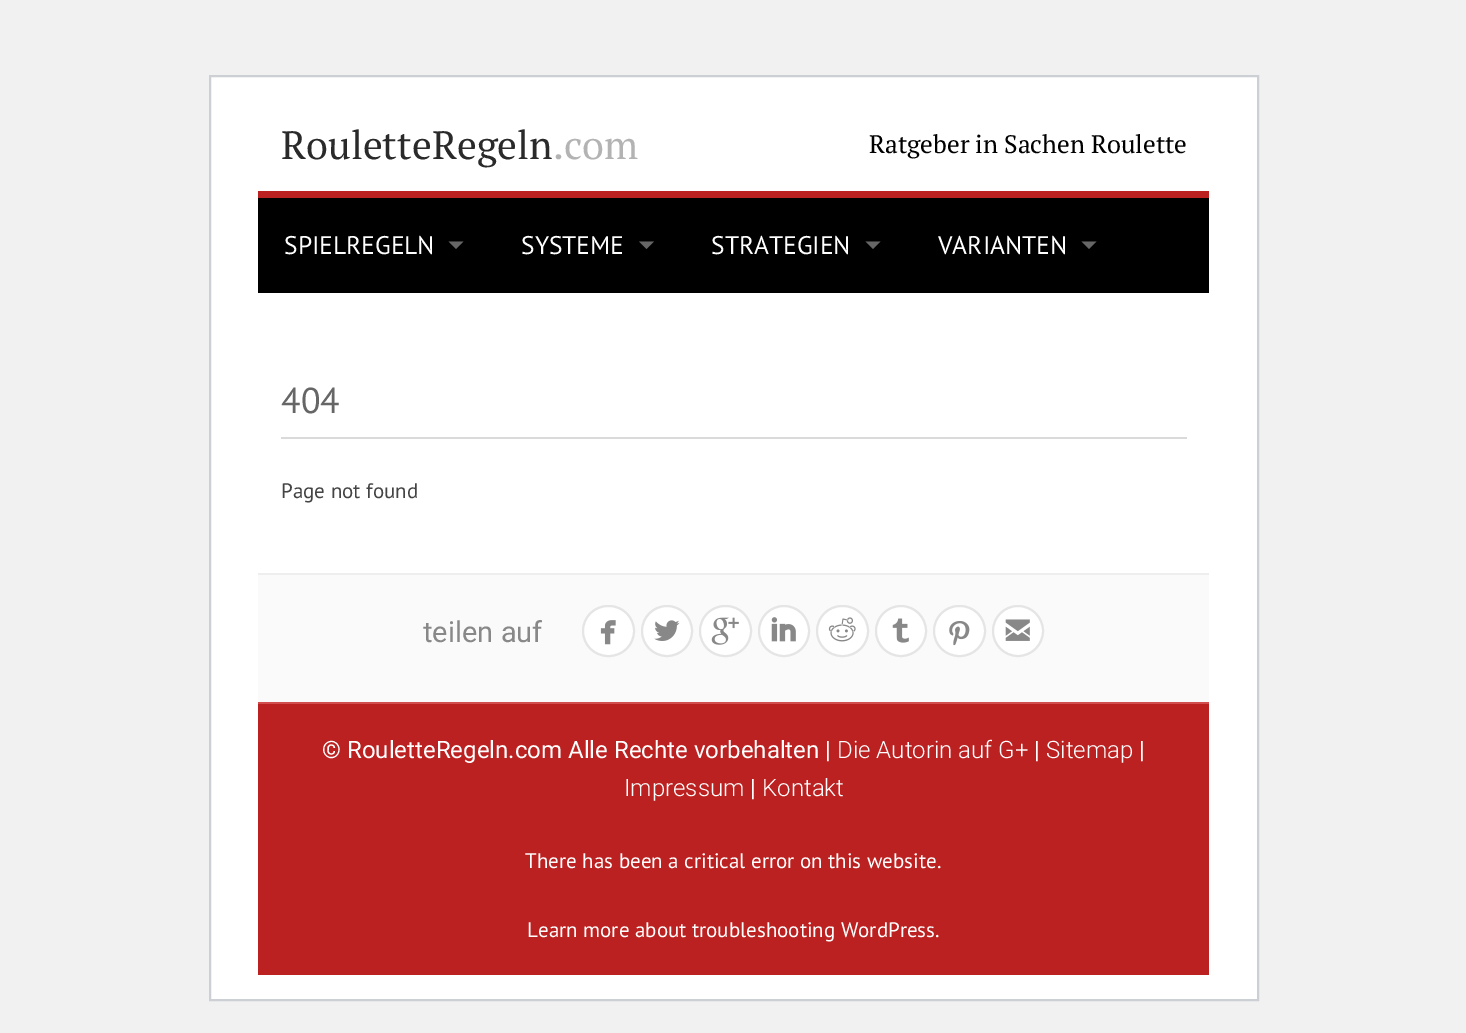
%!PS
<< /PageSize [1466 1033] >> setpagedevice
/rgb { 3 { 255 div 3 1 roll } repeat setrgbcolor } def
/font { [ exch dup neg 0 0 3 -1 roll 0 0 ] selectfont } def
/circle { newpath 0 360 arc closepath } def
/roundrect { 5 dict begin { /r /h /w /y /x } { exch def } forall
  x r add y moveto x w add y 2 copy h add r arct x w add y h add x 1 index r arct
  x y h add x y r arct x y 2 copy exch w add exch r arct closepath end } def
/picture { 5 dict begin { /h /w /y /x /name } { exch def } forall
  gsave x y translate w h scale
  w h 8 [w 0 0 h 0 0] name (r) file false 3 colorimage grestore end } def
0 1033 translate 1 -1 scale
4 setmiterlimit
241 241 241 rgb
0 0 1466 1033 rectfill
255 255 255 rgb
210 76 moveto 1258 76 lineto 1258 1000 lineto 210 1000 lineto closepath gsave fill grestore
204 208 212 rgb
2 setlinewidth
stroke
0 0 0 rgb
258 198 951 95 rectfill
188 33 33 rgb
258 191 951 7 rectfill
102 102 102 rgb
448.5 241.5 moveto 463.5 241.5 lineto 456 249 lineto closepath fill
639 241.5 moveto 654 241.5 lineto 646.5 249 lineto closepath fill
865.5 241.5 moveto 880.5 241.5 lineto 873 249 lineto closepath fill
1081.5 241.5 moveto 1096.5 241.5 lineto 1089 249 lineto closepath fill
[
  [281 437 906 2 218 218 218]
  [258 575 951 127 250 250 250]
  [258 573 951 2 238 238 238]
] { aload pop rgb rectfill } forall
255 255 255 rgb
583 606 51 50 25 roundrect gsave fill grestore
229 229 229 rgb
stroke
(img/1.rgb) 600 620 16 25 picture
255 255 255 rgb
667 631 25 circle gsave fill grestore
229 229 229 rgb
stroke
(img/2.rgb) 654 620 26 21 picture
255 255 255 rgb
700 606 51 50 25 roundrect gsave fill grestore
229 229 229 rgb
stroke
(img/3.rgb) 711 617 28 28 picture
255 255 255 rgb
784 631 25 circle gsave fill grestore
229 229 229 rgb
stroke
(img/4.rgb) 771 617 25 25 picture
255 255 255 rgb
817 606 51 50 25 roundrect gsave fill grestore
229 229 229 rgb
stroke
(img/5.rgb) 828 617 28 25 picture
255 255 255 rgb
901 631 25 circle gsave fill grestore
229 229 229 rgb
stroke
(img/6.rgb) 892 618 17 25 picture
255 255 255 rgb
934 606 51 50 25 roundrect gsave fill grestore
229 229 229 rgb
stroke
(img/7.rgb) 949 621 21 25 picture
255 255 255 rgb
1018 631 25 circle gsave fill grestore
229 229 229 rgb
stroke
(img/8.rgb) 1005 619 25 22 picture
210 77 77 rgb
258 702 951 2 rectfill
188 33 33 rgb
258 704 951 271 rectfill
/PTSerif-Regular 39.5 font
42 42 42 rgb
281 159 moveto (RouletteRegeln) show
179 179 179 rgb
553 159 moveto (.com) show
/PTSerif-Regular 25.25 font
0 0 0 rgb
869 153 moveto (Ratgeber in Sachen Roulette) show
/PTSans-Regular 25.5 font
255 255 255 rgb
[
  [(SPIELREGELN) 284 254]
  [(SYSTEME) 521 254]
  [(STRATEGIEN) 711 254]
  [(VARIANTEN) 938 254]
] { aload pop moveto show } forall
/PTSans-Regular 36 font
102 102 102 rgb
281 413 moveto (404) show
/PTSans-Regular 21 font
68 68 68 rgb
281 498 moveto (Page not found) show
/Roboto-Regular 29 font
136 136 136 rgb
423 642 moveto (teilen auf) show
/Roboto-Regular 24 font
255 255 255 rgb
322 758 moveto (© RouletteRegeln.com Alle Rechte vorbehalten |) show
/Roboto-Light 24 font
837 758 moveto (Die Autorin auf G+) show
/Roboto-Regular 24 font
1034 758 moveto (|) show
/Roboto-Light 24 font
1046 758 moveto (Sitemap) show
/Roboto-Regular 24 font
1139 758 moveto (|) show
/Roboto-Light 24 font
624 796 moveto (Impressum) show
/Roboto-Regular 24 font
750 796 moveto (|) show
/Roboto-Light 24 font
762 796 moveto (Kontakt) show
/PTSans-Regular 21 font
525 868 moveto (There has been a critical error on this website.) show
527 937 moveto (Learn more about troubleshooting WordPress.) show
showpage
